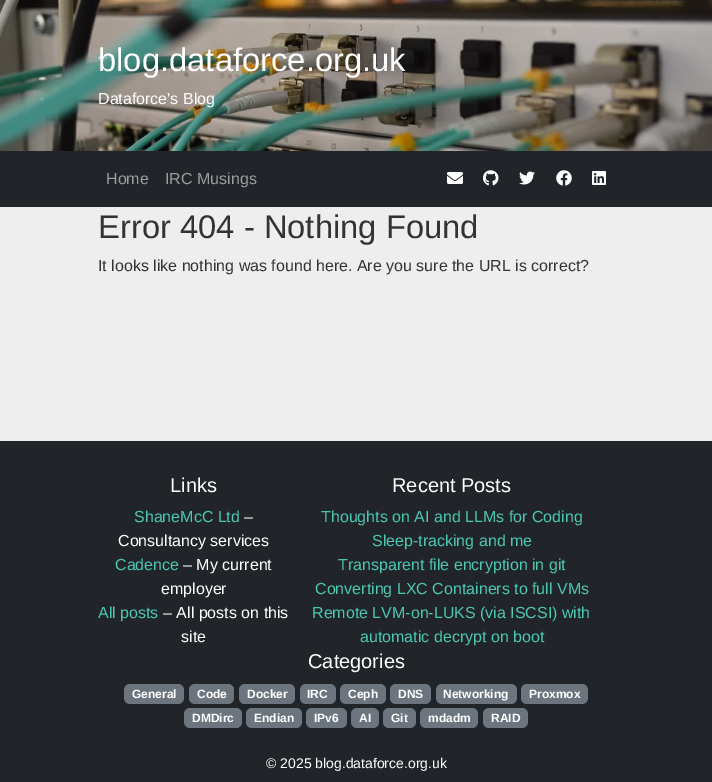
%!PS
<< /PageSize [712 782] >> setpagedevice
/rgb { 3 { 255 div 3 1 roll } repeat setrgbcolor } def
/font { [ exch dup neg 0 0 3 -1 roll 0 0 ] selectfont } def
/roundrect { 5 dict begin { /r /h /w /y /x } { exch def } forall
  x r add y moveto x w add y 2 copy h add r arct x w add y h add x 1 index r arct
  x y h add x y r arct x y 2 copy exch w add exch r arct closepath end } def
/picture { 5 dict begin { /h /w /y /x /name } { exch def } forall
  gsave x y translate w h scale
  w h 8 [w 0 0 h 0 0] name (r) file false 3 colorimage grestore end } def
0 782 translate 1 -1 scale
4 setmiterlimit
238 238 238 rgb
0 0 712 782 rectfill
(img/1.rgb) 0 0 712 151 picture
33 37 41 rgb
0 151 712 56 rectfill
(img/2.rgb) 447 172 16 12 picture
(img/3.rgb) 483 170 16 16 picture
(img/4.rgb) 519 171 16 14 picture
(img/5.rgb) 556 170 16 16 picture
(img/6.rgb) 592 171 14 14 picture
0 441 712 341 rectfill
108 117 125 rgb
124 684 60 20 6 roundrect fill
189 684 45 20 6 roundrect fill
239 684 56 20 6 roundrect fill
300 684 36 20 6 roundrect fill
340 684 46 20 6 roundrect fill
390 684 41 20 6 roundrect fill
436 684 81 20 6 roundrect fill
521 684 67 20 6 roundrect fill
184 708 58 20 6 roundrect fill
246 708 56 20 6 roundrect fill
306 708 41 20 6 roundrect fill
351 708 28 20 6 roundrect fill
383 708 33 20 6 roundrect fill
420 708 58 20 6 roundrect fill
483 708 45 20 6 roundrect fill
/LiberationSans-Regular 32.75 font
255 255 255 rgb
98 71 moveto (blog.dataforce.org.uk) show
/LiberationSans-Regular 16 font
98 104 moveto (Dataforce's Blog) show
155 157 159 rgb
106 184 moveto (Home) show
165 184 moveto (IRC Musings) show
/LiberationSans-Regular 32.75 font
51 51 51 rgb
98 238 moveto (Error 404 - Nothing Found) show
/LiberationSans-Regular 16 font
98 271 moveto (It looks like nothing was found here. Are you sure the URL is correct?) show
/LiberationSans-Regular 20 font
255 255 255 rgb
170 492 moveto (Links) show
/LiberationSans-Regular 16 font
76 199 176 rgb
134 522 moveto (ShaneMcC Ltd) show
255 255 255 rgb
244 522 moveto (–) show
118 546 moveto (Consultancy services) show
76 199 176 rgb
115 570 moveto (Cadence) show
255 255 255 rgb
183 570 moveto (– My current) show
161 594 moveto (employer) show
76 199 176 rgb
98 618 moveto (All posts) show
255 255 255 rgb
163 618 moveto (– All posts on this) show
181 642 moveto (site) show
/LiberationSans-Regular 20 font
392 492 moveto (Recent Posts) show
/LiberationSans-Regular 16 font
76 199 176 rgb
[
  [(Thoughts on AI and LLMs for Coding) 321 522]
  [(Sleep-tracking and me) 372 546]
  [(Transparent file encryption in git) 338 570]
  [(Converting LXC Containers to full VMs) 315 594]
  [(Remote LVM-on-LUKS \(via ISCSI\) with) 312 618]
  [(automatic decrypt on boot) 360 642]
] { aload pop moveto show } forall
/LiberationSans-Regular 20 font
255 255 255 rgb
308 668 moveto (Categories) show
/LiberationSans-Bold 12 font
[
  [(General) 132 698]
  [(Code) 197 698]
  [(Docker) 247 698]
  [(IRC) 307 698]
  [(Ceph) 348 698]
  [(DNS) 398 698]
  [(Networking) 443 698]
  [(Proxmox) 529 698]
  [(DMDirc) 192 722]
  [(Endian) 254 722]
  [(IPv6) 314 722]
  [(AI) 359 722]
  [(Git) 391 722]
  [(mdadm) 428 722]
  [(RAID) 491 722]
] { aload pop moveto show } forall
/LiberationSans-Regular 14 font
266 768 moveto (© 2025 blog.dataforce.org.uk) show
showpage
